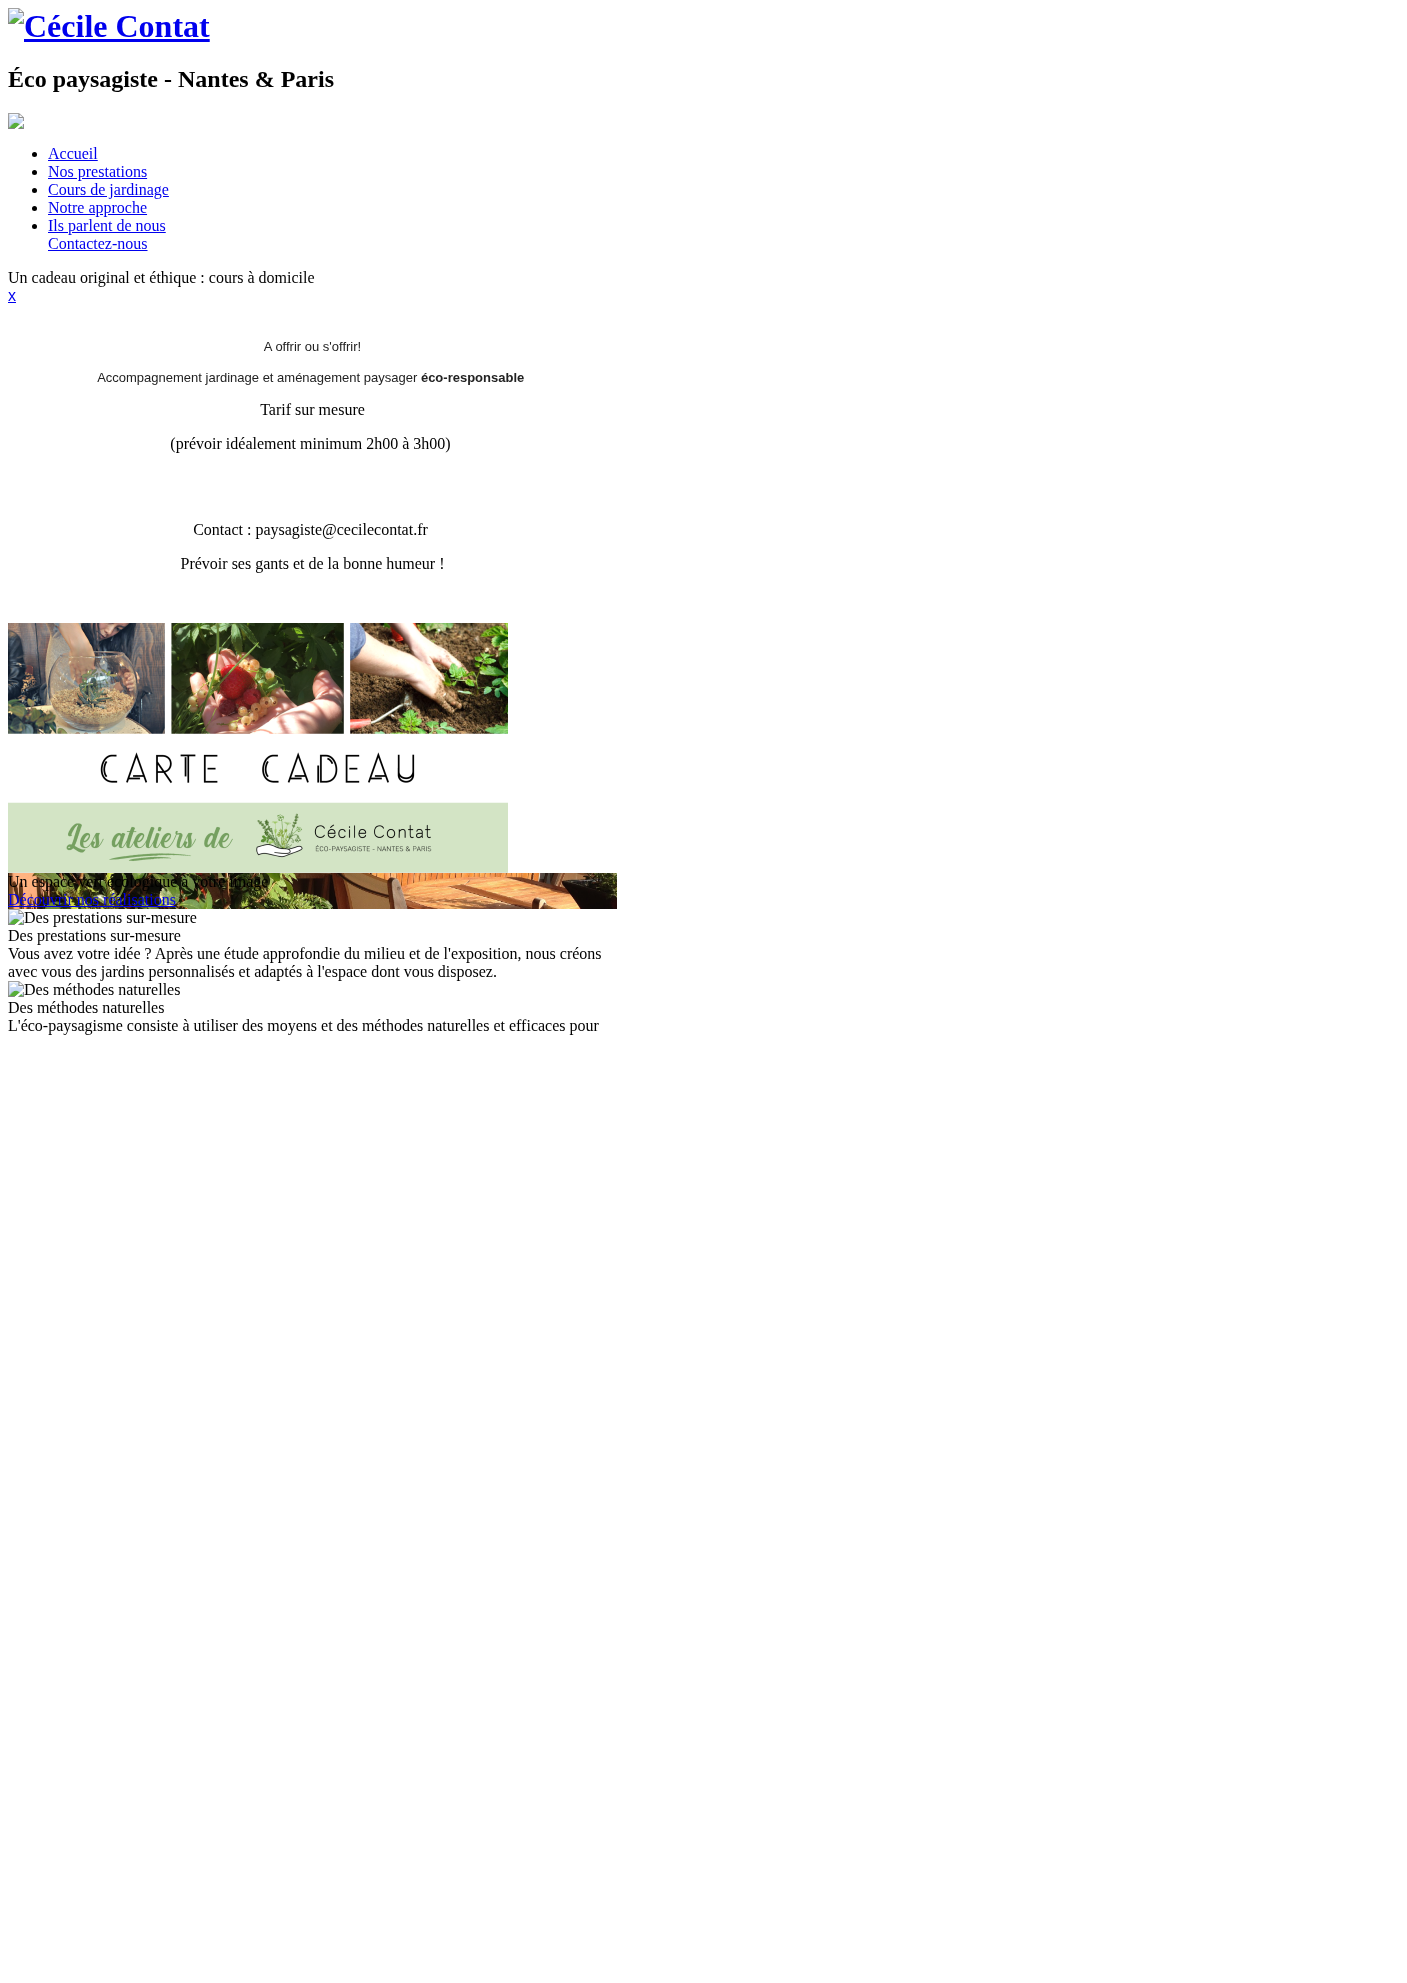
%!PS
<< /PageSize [1407 1983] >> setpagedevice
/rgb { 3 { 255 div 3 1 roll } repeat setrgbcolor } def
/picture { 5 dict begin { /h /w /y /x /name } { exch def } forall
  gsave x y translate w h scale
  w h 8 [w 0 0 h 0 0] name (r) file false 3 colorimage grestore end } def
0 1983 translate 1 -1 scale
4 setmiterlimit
255 255 255 rgb
0 0 1407 1983 rectfill
(img/1.rgb) 8 8 609 1027 picture
showpage
